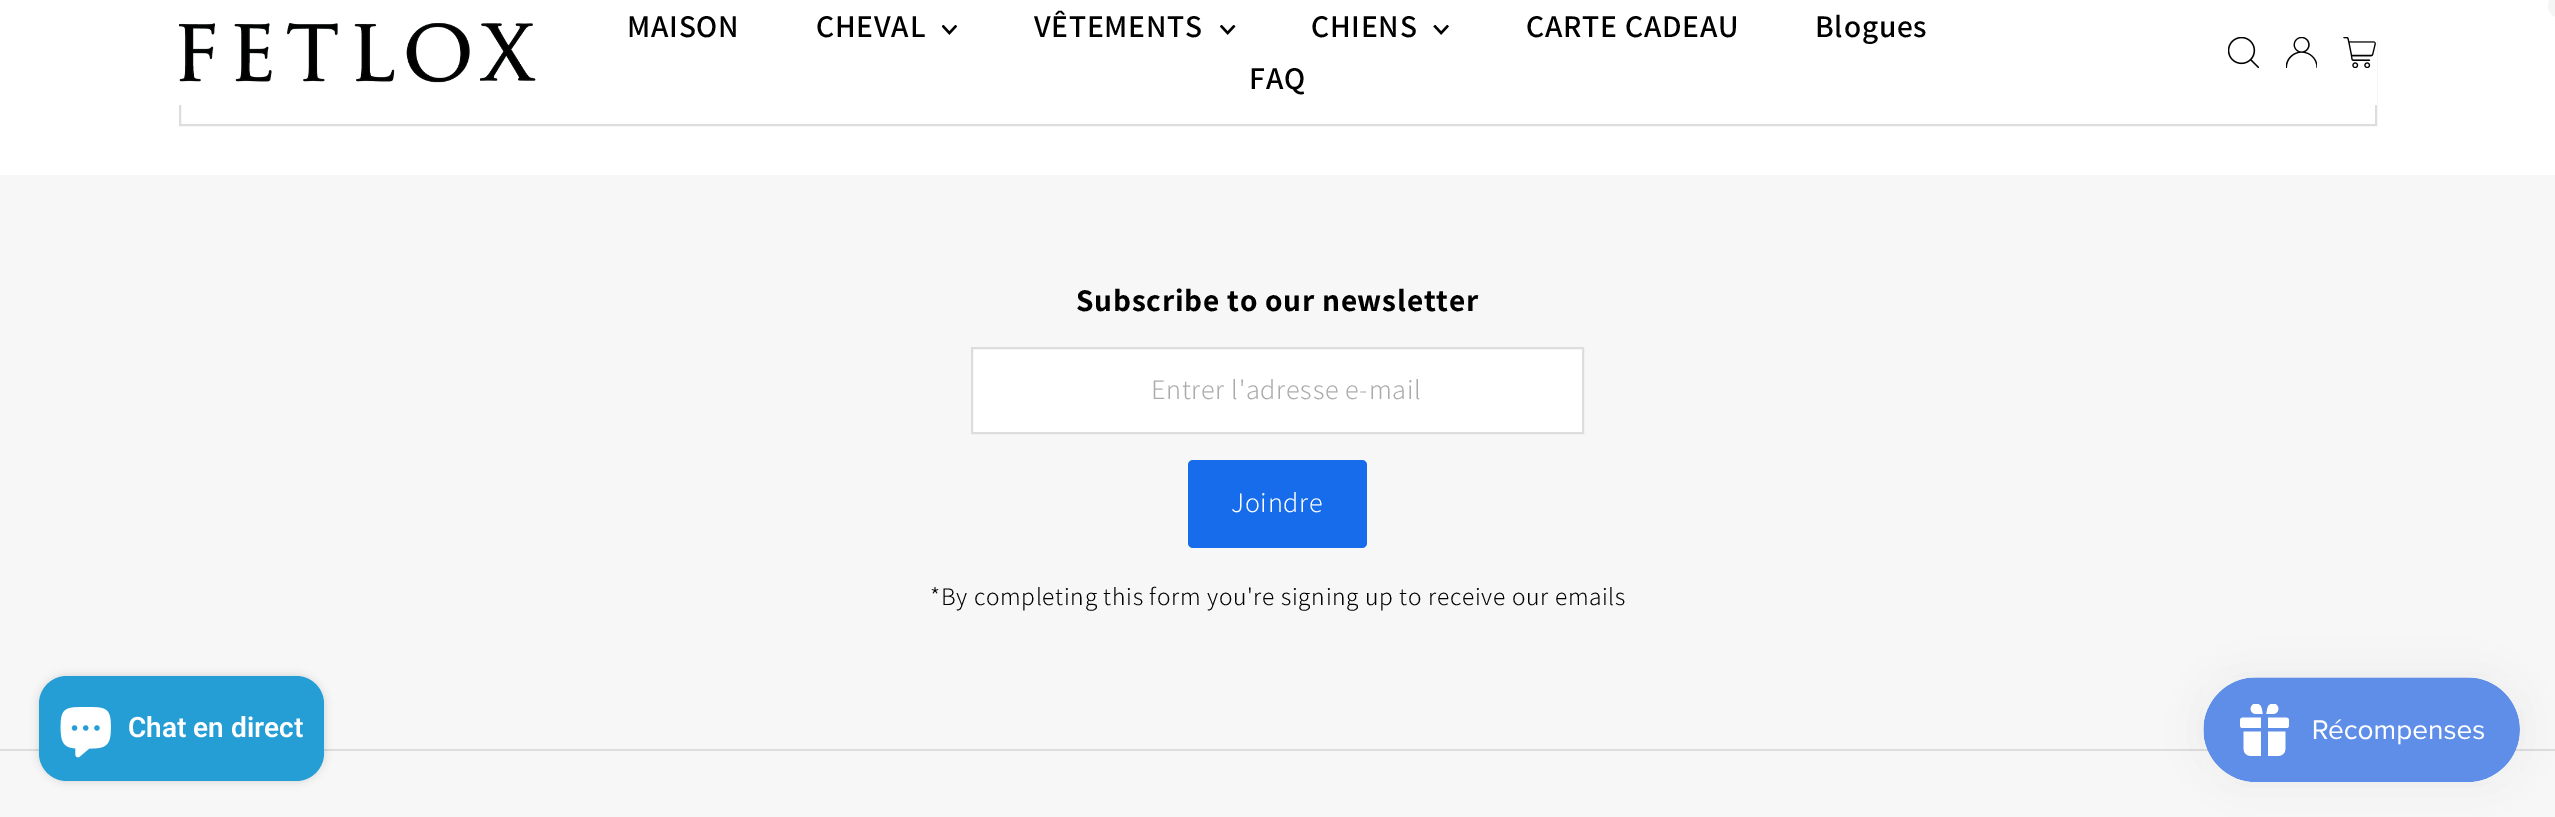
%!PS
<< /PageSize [2555 817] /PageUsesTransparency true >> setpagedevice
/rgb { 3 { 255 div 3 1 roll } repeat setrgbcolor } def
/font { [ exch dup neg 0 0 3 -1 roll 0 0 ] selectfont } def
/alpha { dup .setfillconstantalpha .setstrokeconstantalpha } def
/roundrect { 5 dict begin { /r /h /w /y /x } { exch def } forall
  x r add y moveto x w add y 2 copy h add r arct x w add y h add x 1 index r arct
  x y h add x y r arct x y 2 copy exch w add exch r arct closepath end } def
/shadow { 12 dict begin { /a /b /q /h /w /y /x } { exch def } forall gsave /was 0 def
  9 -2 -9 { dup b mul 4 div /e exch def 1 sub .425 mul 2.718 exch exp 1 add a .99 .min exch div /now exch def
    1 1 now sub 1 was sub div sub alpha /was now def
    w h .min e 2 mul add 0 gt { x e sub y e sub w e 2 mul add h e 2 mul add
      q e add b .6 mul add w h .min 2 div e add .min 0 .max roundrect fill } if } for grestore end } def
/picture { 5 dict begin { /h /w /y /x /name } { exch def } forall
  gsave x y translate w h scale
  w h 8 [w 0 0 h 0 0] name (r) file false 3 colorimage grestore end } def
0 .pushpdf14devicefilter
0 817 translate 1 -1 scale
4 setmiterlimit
255 255 255 rgb
0 0 2555 817 rectfill
221 221 221 rgb
2 setlinewidth
180 40 2196 85 rectstroke
255 255 255 rgb
179 39 2198 66 rectfill
(img/1.rgb) 179 23 357 60 picture
(img/2.rgb) 942 25 15 10 picture
(img/3.rgb) 1220 25 16 10 picture
(img/4.rgb) 1433 25 16 10 picture
(img/5.rgb) 2228 37 31 31 picture
(img/6.rgb) 2286 37 31 31 picture
245 245 245 rgb
2548 -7 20 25 12.5 roundrect fill
(img/7.rgb) 2343 37 33 31 picture
247 247 247 rgb
0 175 2555 574 rectfill
255 255 255 rgb
972 348 moveto 1583 348 lineto 1583 433 lineto 972 433 lineto closepath gsave fill grestore
221 221 221 rgb
stroke
22 108 234 rgb
1188 460 179 88 5 roundrect fill
247 247 247 rgb
0 751 2555 66 rectfill
221 221 221 rgb
0 749 2555 2 rectfill
0 0 0 rgb
39 676 285 105 28 4.5 0.15 shadow
37 158 214 rgb
39 676 285 105 28 roundrect fill
(img/8.rgb) 60 707 51 51 picture
0 0 0 rgb
2203 677 317 105 52.5 22 0.05 shadow
(img/9.rgb) 2203 677 317 105 picture
/Assistant-SemiBold 31.5 font
627 37 moveto 0.8 0 (MAISON) ashow
816 37 moveto 0.8 0 (CHEVAL) ashow
1034 37 moveto 0.8 0 (VÊTEMENTS) ashow
1311 37 moveto 0.8 0 (CHIENS) ashow
1526 37 moveto 0.8 0 (CARTE CADEAU) ashow
1815 37 moveto 0.8 0 (Blogues) ashow
1249 89 moveto 0.8 0 (FAQ) ashow
/Assistant-Bold 31.5 font
1076 311 moveto 0.8 0 (Subscribe to our newsletter) ashow
/Assistant-Light 28 font
170 170 170 rgb
1151 399 moveto 0.7 0 (Entrer l'adresse e-mail) ashow
255 255 255 rgb
1231 512 moveto 0.7 0 (Joindre) ashow
/Assistant-Light 25.2 font
0 0 0 rgb
930 605 moveto 0.7 0 (*By completing this form you're signing up to receive our emails) ashow
/Roboto-SemiBold 28 font
255 255 255 rgb
128 737 moveto (Chat en direct) show
.poppdf14devicefilter showpage
